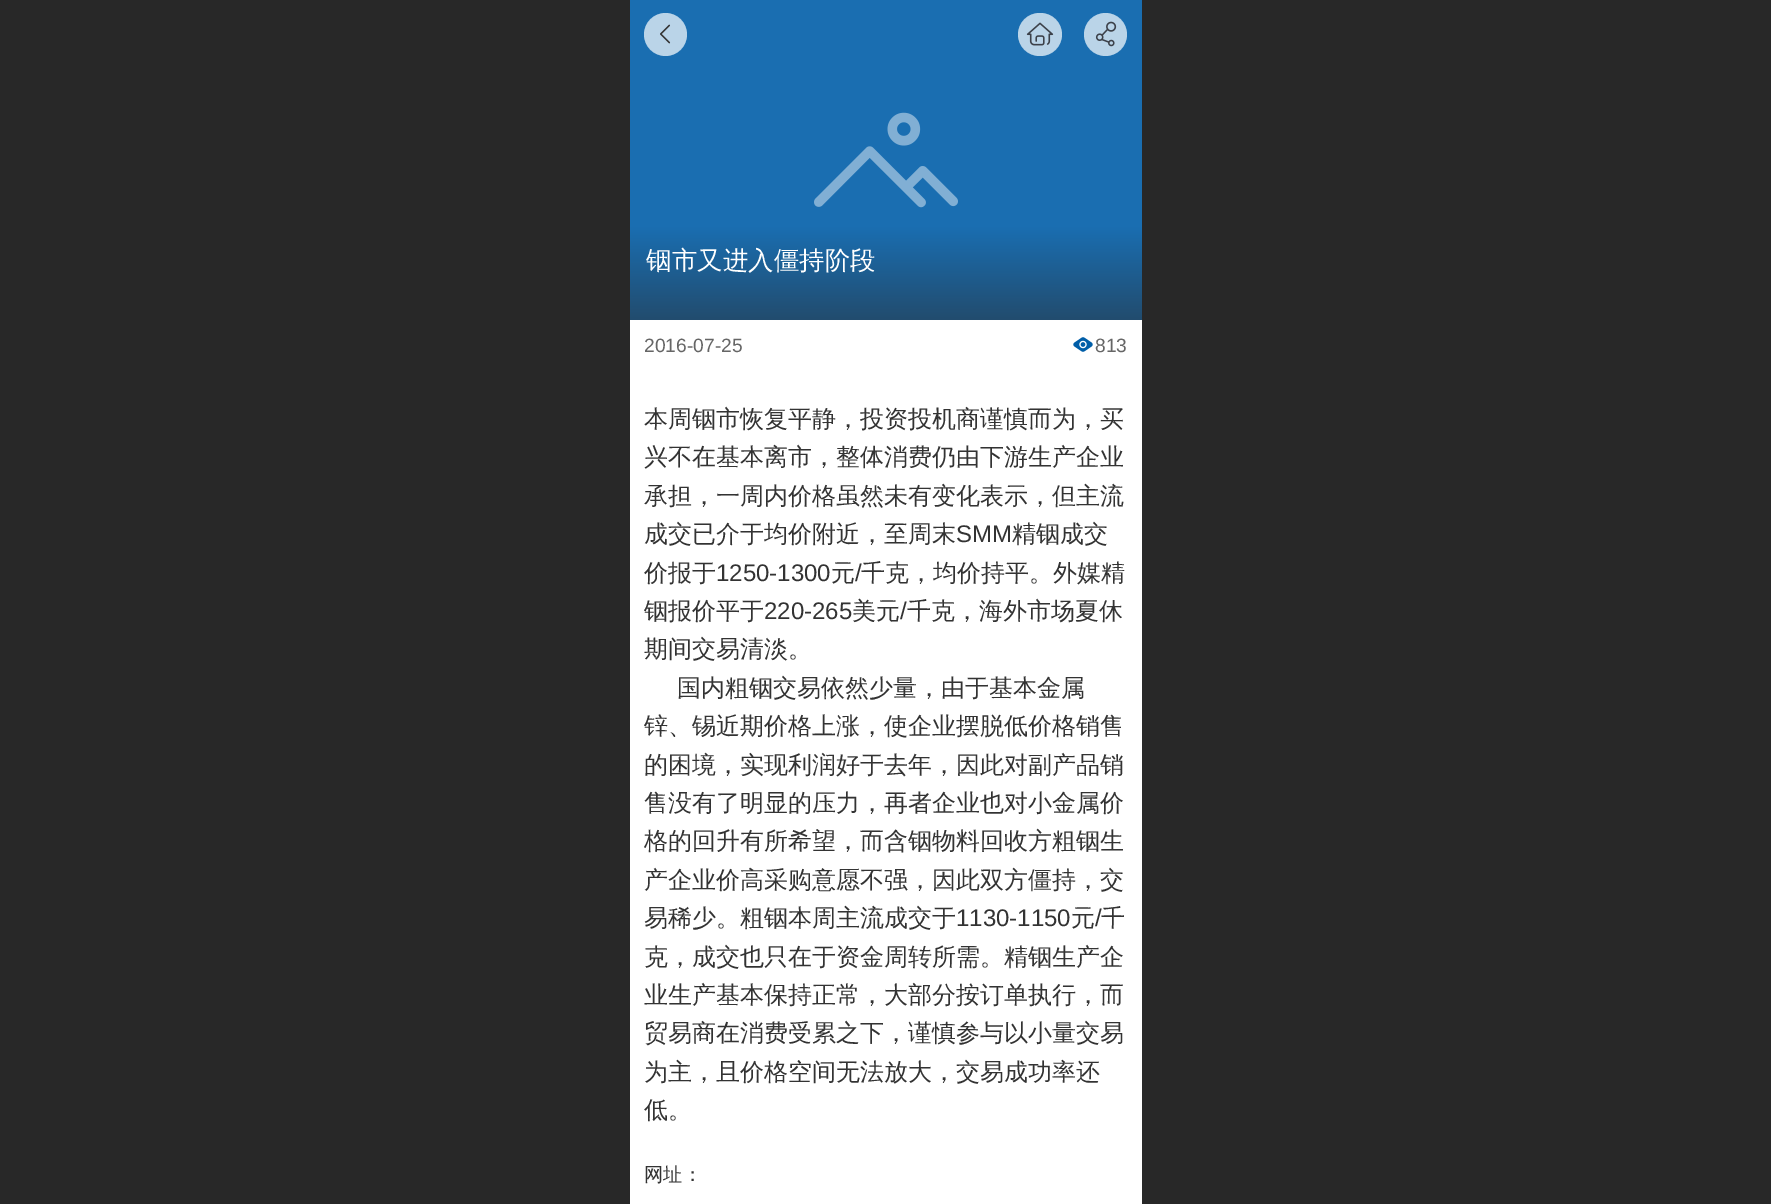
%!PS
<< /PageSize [1771 1204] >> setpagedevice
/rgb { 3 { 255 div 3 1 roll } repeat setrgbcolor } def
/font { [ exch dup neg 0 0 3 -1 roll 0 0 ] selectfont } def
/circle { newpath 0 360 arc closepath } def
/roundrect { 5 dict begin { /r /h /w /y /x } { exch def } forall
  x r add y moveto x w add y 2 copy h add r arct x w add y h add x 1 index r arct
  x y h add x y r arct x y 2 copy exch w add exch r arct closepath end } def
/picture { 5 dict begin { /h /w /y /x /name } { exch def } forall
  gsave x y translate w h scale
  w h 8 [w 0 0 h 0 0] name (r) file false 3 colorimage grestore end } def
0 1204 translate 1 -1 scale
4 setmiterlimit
255 255 255 rgb
0 0 1771 1204 rectfill
40 40 40 rgb
0 0 630 1204 rectfill
26 110 177 rgb
630 0 512 227 rectfill
186 212 232 rgb
665.5 34.5 21.5 circle fill
(img/1.rgb) 660 24 11 20 picture
1018 13 44 43 21.5 roundrect fill
(img/2.rgb) 1026 22 28 24 picture
1105.5 34.5 21.5 circle fill
(img/3.rgb) 1095 21 22 26 picture
(img/4.rgb) 814 112 144 96 picture
gsave 630 227 moveto 1142 227 lineto 1142 320 lineto 630 320 lineto closepath clip newpath
<< /ShadingType 2 /ColorSpace /DeviceRGB /Coords [886 227 886 320] /Extend [true true] /Function << /FunctionType 2 /Domain [0 1] /C0 [0.102 0.431 0.694] /C1 [0.133 0.298 0.431] /N 1 >> >> shfill grestore
(img/5.rgb) 1073 337 20 15 picture
40 40 40 rgb
1142 0 629 1204 rectfill
/WenQuanYiZenHei-Medium 25.5 font
255 255 255 rgb
646 269 moveto (铟市又进入僵持阶段) show
/LiberationSans-Regular 19.25 font
102 102 102 rgb
644 352 moveto (2016-07-25) show
1095 352 moveto (813) show
/WenQuanYiZenHei-Medium 24 font
51 51 51 rgb
[
  [(本周铟市恢复平静，投资投机商谨慎而为，买) 644 427]
  [(兴不在基本离市，整体消费仍由下游生产企业) 644 465]
  [(承担，一周内价格虽然未有变化表示，但主流) 644 504]
  [(成交已介于均价附近，至周末) 644 542]
] { aload pop moveto show } forall
/LiberationSans-Regular 24 font
956 542 moveto (SMM) show
/WenQuanYiZenHei-Medium 24 font
1012 542 moveto (精铟成交) show
644 581 moveto (价报于) show
/LiberationSans-Regular 24 font
716 581 moveto (1250-1300) show
/WenQuanYiZenHei-Medium 24 font
831 581 moveto (元) show
/LiberationSans-Regular 24 font
855 581 moveto (/) show
/WenQuanYiZenHei-Medium 24 font
861 581 moveto (千克，均价持平。外媒精) show
644 619 moveto (铟报价平于) show
/LiberationSans-Regular 24 font
764 619 moveto (220-265) show
/WenQuanYiZenHei-Medium 24 font
852 619 moveto (美元) show
/LiberationSans-Regular 24 font
900 619 moveto (/) show
/WenQuanYiZenHei-Medium 24 font
[
  [(千克，海外市场夏休) 907 619]
  [(期间交易清淡。) 644 657]
  [(国内粗铟交易依然少量，由于基本金属) 677 696]
  [(锌、锡近期价格上涨，使企业摆脱低价格销售) 644 734]
  [(的困境，实现利润好于去年，因此对副产品销) 644 773]
  [(售没有了明显的压力，再者企业也对小金属价) 644 811]
  [(格的回升有所希望，而含铟物料回收方粗铟生) 644 849]
  [(产企业价高采购意愿不强，因此双方僵持，交) 644 888]
  [(易稀少。粗铟本周主流成交于) 644 926]
] { aload pop moveto show } forall
/LiberationSans-Regular 24 font
956 926 moveto (1130-1150) show
/WenQuanYiZenHei-Medium 24 font
1071 926 moveto (元) show
/LiberationSans-Regular 24 font
1095 926 moveto (/) show
/WenQuanYiZenHei-Medium 24 font
[
  [(千) 1101 926]
  [(克，成交也只在于资金周转所需。精铟生产企) 644 965]
  [(业生产基本保持正常，大部分按订单执行，而) 644 1003]
  [(贸易商在消费受累之下，谨慎参与以小量交易) 644 1041]
  [(为主，且价格空间无法放大，交易成功率还) 644 1080]
  [(低。) 644 1118]
] { aload pop moveto show } forall
/WenQuanYiZenHei-Medium 19.25 font
644 1181 moveto (网址：) show
showpage
